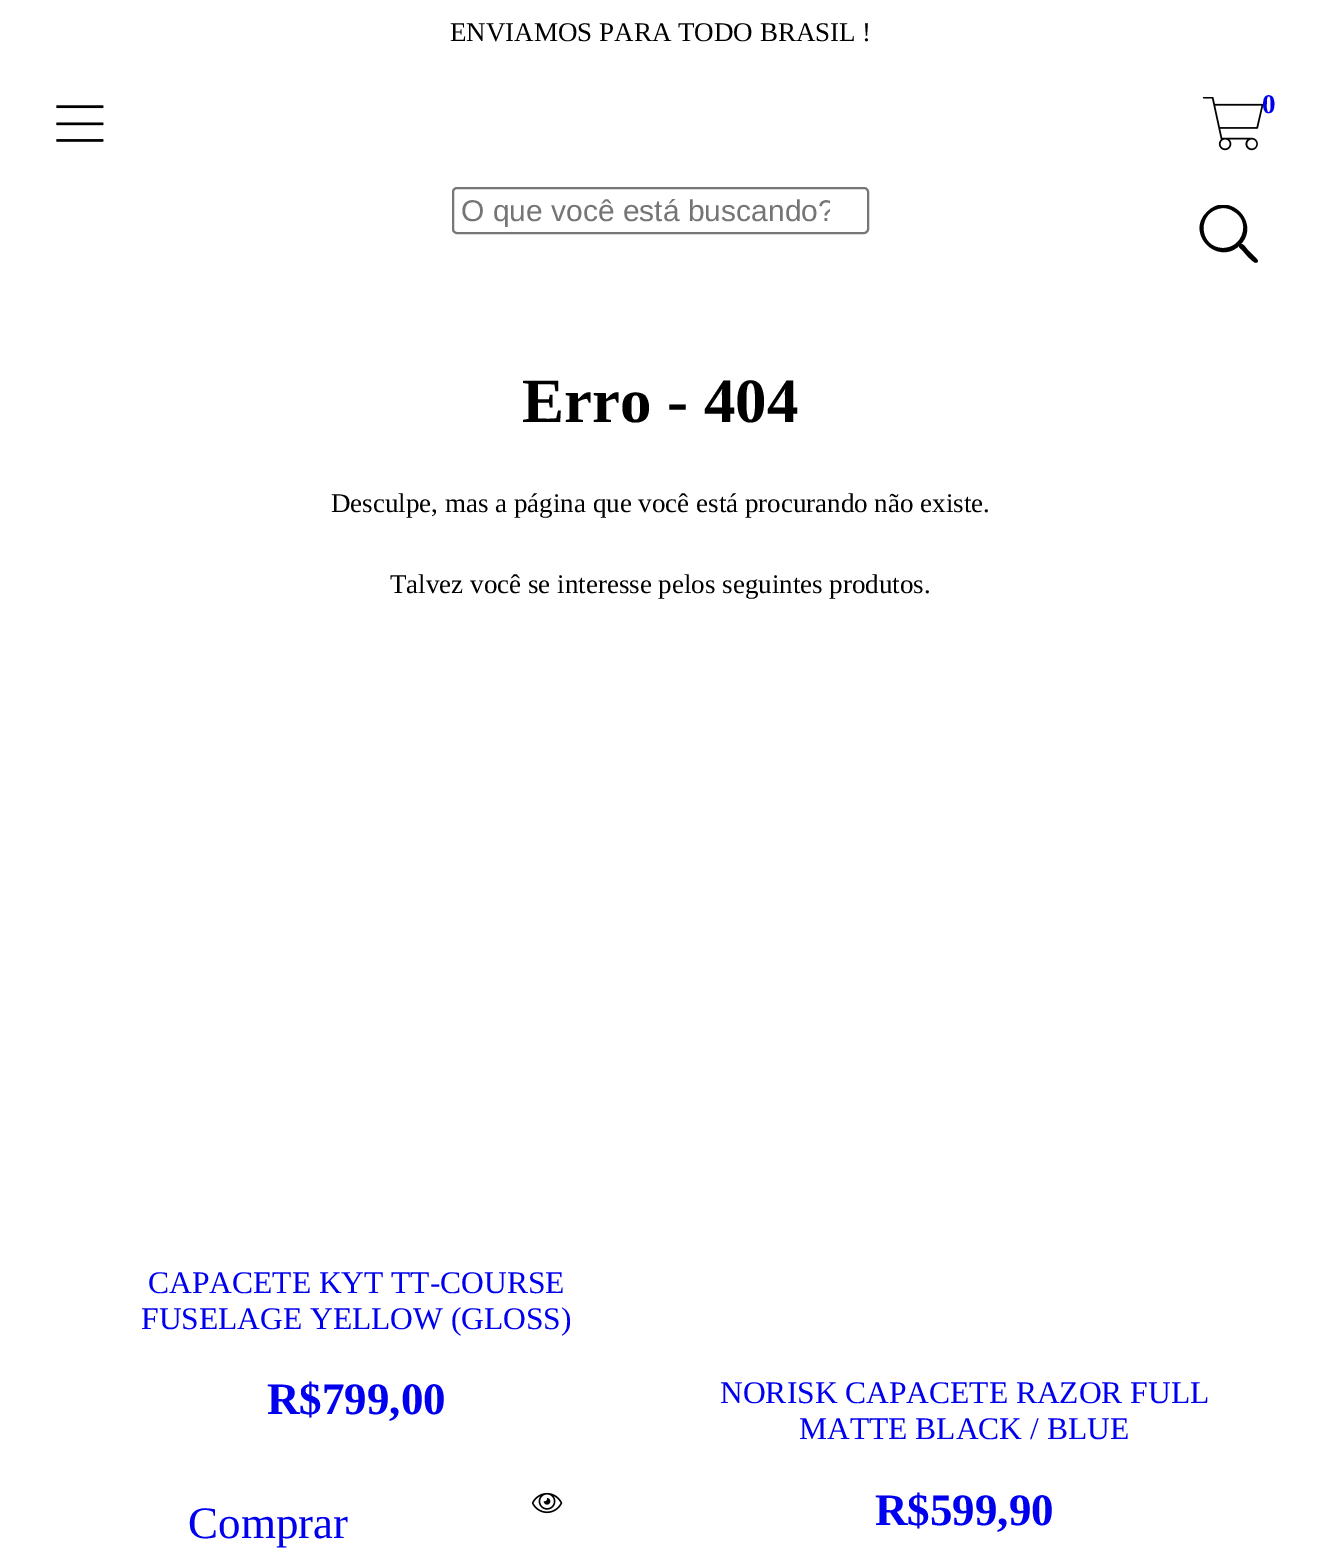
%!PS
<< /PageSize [1319 1563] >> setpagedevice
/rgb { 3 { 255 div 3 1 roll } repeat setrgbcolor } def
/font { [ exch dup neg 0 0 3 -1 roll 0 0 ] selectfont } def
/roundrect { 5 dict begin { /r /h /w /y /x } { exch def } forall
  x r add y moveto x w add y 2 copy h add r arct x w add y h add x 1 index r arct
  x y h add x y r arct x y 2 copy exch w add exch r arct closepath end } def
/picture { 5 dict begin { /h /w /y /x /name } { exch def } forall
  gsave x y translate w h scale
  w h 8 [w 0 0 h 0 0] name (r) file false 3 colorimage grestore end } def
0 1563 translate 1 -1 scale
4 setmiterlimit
255 255 255 rgb
0 0 1319 1563 rectfill
(img/1.rgb) 56 105 48 37 picture
(img/2.rgb) 1202 97 62 54 picture
118 118 118 rgb
2 setlinewidth
453 188 415 45 4 roundrect stroke
gsave
1199 205 60 60 rectclip
0 0 0 rgb
1257 259 moveto 1248 250 lineto 1245 247 1244 244 1241 244 curveto 1261 222 1228 190 1207 212 curveto 1185 233 1217 266 1239 246 curveto 1239 248 1240 248 1242 250 curveto 1249 258 lineto 1251 259 1256 266 1258 261 curveto closepath 1223 248 moveto 1198 248 1196 210 1223 208 curveto 1227 208 1230 209 1233 211 curveto 1251 220 1244 248 1223 248 curveto closepath fill
grestore
(img/3.rgb) 531 1492 32 22 picture
/LiberationSerif-Regular 27 font
0 0 0 rgb
450 41 moveto (ENVIAMOS PARA TODO BRASIL !) show
/LiberationSerif-Bold 27 font
0 0 238 rgb
1262 113 moveto (0) show
gsave
461 194 369 33 rectclip
/LiberationSans-Regular 30 font
117 117 117 rgb
461 221 moveto (O que você está buscando?) show
grestore
/LiberationSerif-Bold 63 font
0 0 0 rgb
522 422 moveto (Erro - 404) show
/LiberationSerif-Regular 27 font
331 512 moveto (Desculpe, mas a página que você está procurando não existe.) show
390 593 moveto (Talvez você se interesse pelos seguintes produtos.) show
/LiberationSerif-Regular 31.5 font
0 0 238 rgb
148 1293 moveto (CAPACETE KYT TT-COURSE) show
141 1329 moveto (FUSELAGE YELLOW \(GLOSS\)) show
/LiberationSerif-Bold 45 font
267 1414 moveto (R$799,00) show
/LiberationSerif-Regular 45 font
188 1538 moveto (Comprar) show
/LiberationSerif-Regular 31.5 font
720 1403 moveto (NORISK CAPACETE RAZOR FULL) show
799 1439 moveto (MATTE BLACK / BLUE) show
/LiberationSerif-Bold 45 font
875 1525 moveto (R$599,90) show
showpage
